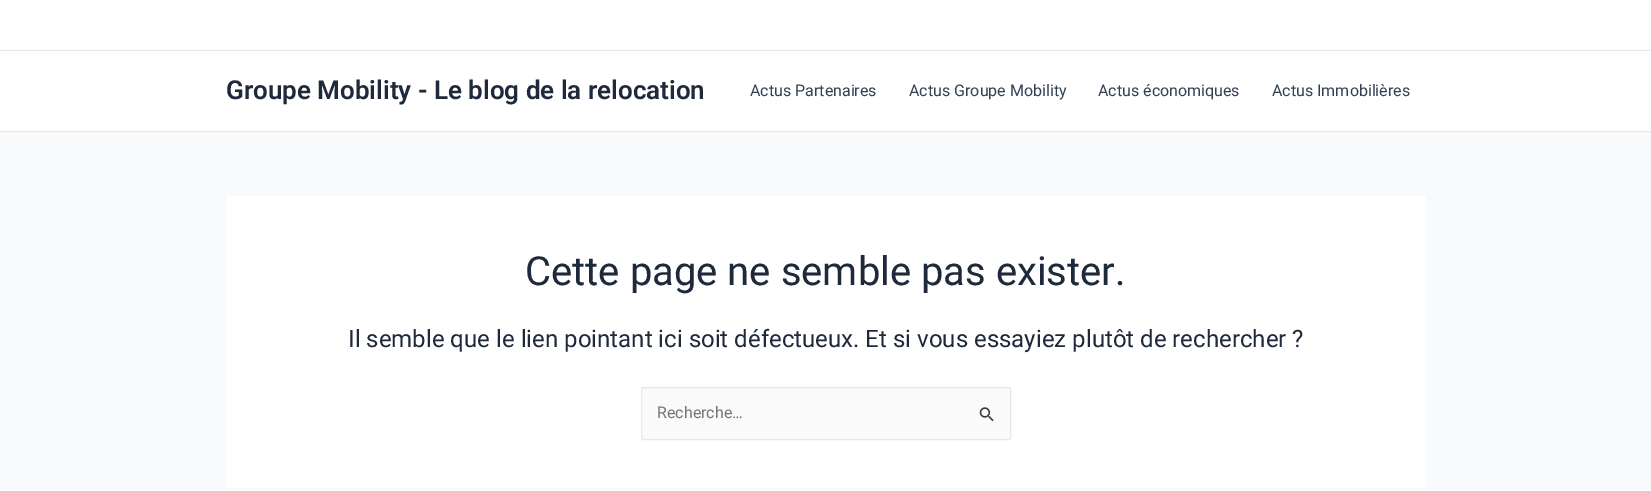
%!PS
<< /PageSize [1651 491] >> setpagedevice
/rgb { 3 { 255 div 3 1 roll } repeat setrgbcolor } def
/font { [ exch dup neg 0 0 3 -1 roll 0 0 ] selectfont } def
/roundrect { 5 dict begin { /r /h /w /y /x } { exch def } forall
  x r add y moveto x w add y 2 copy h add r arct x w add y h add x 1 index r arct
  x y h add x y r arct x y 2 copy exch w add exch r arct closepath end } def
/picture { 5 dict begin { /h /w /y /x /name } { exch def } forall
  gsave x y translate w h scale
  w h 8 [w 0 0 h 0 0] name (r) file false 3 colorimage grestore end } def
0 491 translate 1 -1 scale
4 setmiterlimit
249 250 251 rgb
0 0 1651 491 rectfill
[
  [0 0 1651 50 255 255 255]
  [0 50 1651 1 226 232 240]
  [0 51 1651 80 255 255 255]
  [0 131 1651 1 226 232 240]
  [226 196 1200 292 255 255 255]
] { aload pop rgb rectfill } forall
250 250 250 rgb
641.5 387.5 369 52 1.5 roundrect gsave fill grestore
226 232 240 rgb
stroke
(img/1.rgb) 979 407 15 15 picture
/Roboto-SemiBold 26 font
30 41 59 rgb
226 99 moveto (Groupe Mobility - Le blog de la relocation) show
/Roboto-Regular 16 font
51 65 85 rgb
[
  [(Actus Partenaires) 750 96]
  [(Actus Groupe Mobility) 909 96]
  [(Actus économiques) 1098 96]
  [(Actus Immobilières) 1272 96]
] { aload pop moveto show } forall
/Roboto-Regular 40 font
30 41 59 rgb
525 285 moveto (Cette page ne semble pas exister.) show
/Roboto-Regular 24 font
348 347 moveto (Il semble que le lien pointant ici soit défectueux. Et si vous essayiez plutôt de rechercher ?) show
/Roboto-Regular 16 font
117 117 117 rgb
657 418 moveto (Recherche…) show
showpage
